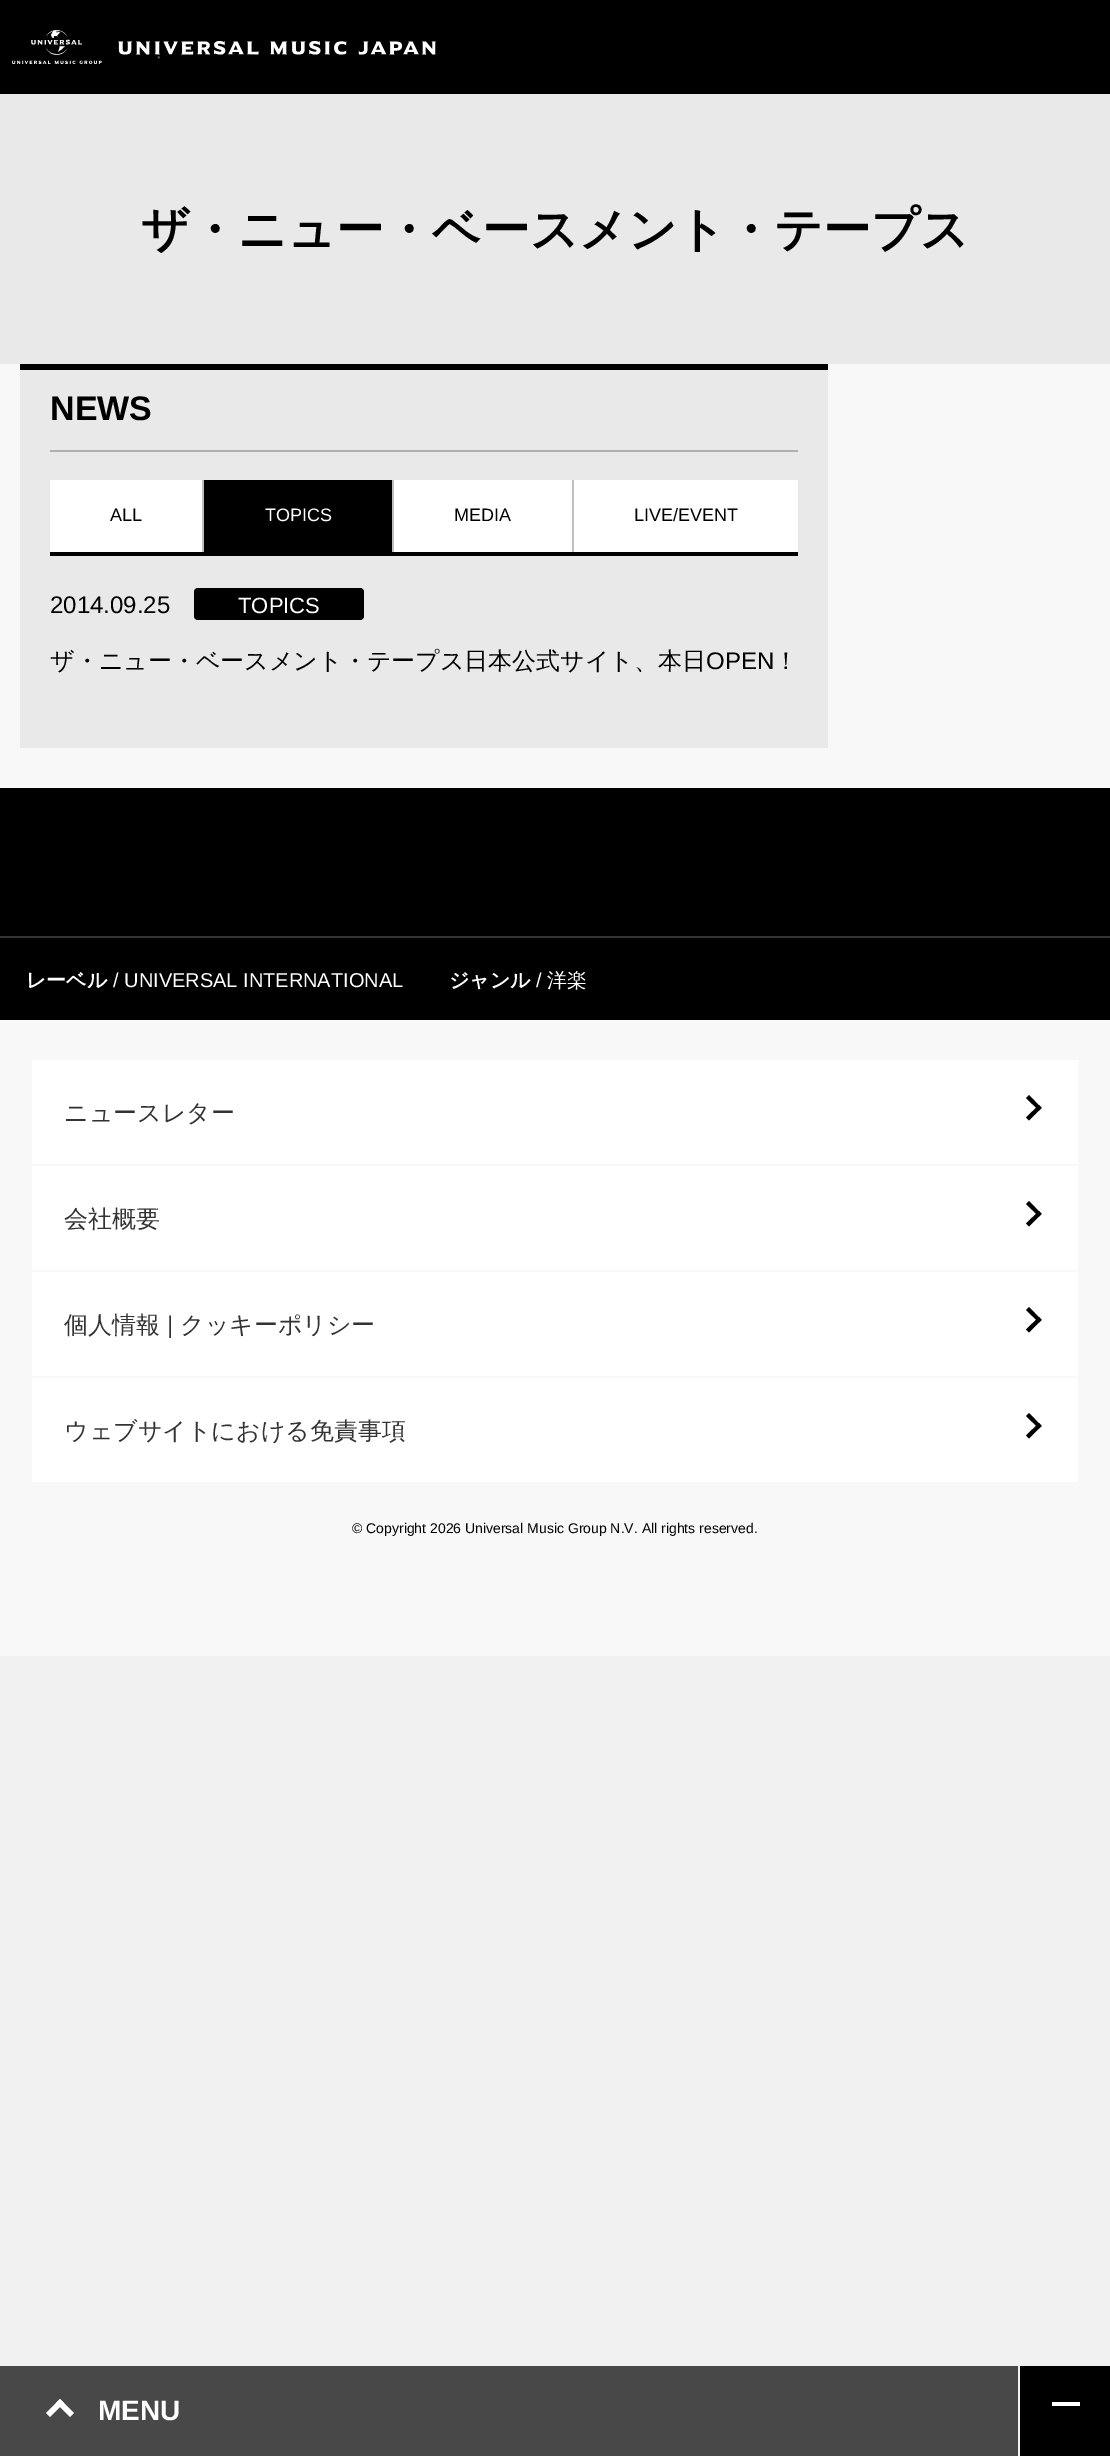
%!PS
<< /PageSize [1110 2456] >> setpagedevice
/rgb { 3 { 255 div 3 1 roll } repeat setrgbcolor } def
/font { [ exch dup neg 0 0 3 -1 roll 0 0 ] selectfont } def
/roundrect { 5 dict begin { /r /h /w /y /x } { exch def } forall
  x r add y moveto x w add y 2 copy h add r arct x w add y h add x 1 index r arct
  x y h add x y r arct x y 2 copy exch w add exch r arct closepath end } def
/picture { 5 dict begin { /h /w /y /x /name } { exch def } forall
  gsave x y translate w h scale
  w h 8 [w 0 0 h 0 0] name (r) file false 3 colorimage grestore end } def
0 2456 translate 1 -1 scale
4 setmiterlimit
241 241 241 rgb
0 0 1110 2456 rectfill
0 0 0 rgb
0 0 1110 94 rectfill
(img/1.rgb) 12 30 424 34 picture
[
  [0 364 1110 1292 248 248 248]
  [0 94 1110 270 233 233 233]
  [20 364 808 6 0 0 0]
  [20 370 808 378 233 233 233]
  [50 450 748 2 176 176 176]
  [50 552 748 4 0 0 0]
  [50 480 152 72 255 255 255]
  [202 480 2 72 191 191 191]
  [204 480 188 72 0 0 0]
  [392 480 2 72 191 191 191]
  [394 480 178 72 255 255 255]
  [572 480 2 72 191 191 191]
  [574 480 224 72 255 255 255]
] { aload pop rgb rectfill } forall
0 0 0 rgb
194 588 170 32 4 roundrect fill
[
  [0 788 1110 232 0 0 0]
  [0 936 1110 2 51 51 51]
  [32 1060 1046 104 255 255 255]
] { aload pop rgb rectfill } forall
0 0 0 rgb
1026 1098 moveto 1029 1095 lineto 1041.5 1108 lineto 1039 1110.5 lineto closepath fill
1026 1117.5 moveto 1039 1105 lineto 1041.5 1108 lineto 1029 1120.5 lineto closepath fill
255 255 255 rgb
32 1166 1046 104 rectfill
0 0 0 rgb
1026 1204 moveto 1029 1201 lineto 1041.5 1214 lineto 1039 1216.5 lineto closepath fill
1026 1223.5 moveto 1039 1211 lineto 1041.5 1214 lineto 1029 1226.5 lineto closepath fill
255 255 255 rgb
32 1272 1046 104 rectfill
0 0 0 rgb
1026 1310 moveto 1029 1307 lineto 1041.5 1320 lineto 1039 1322.5 lineto closepath fill
1026 1329.5 moveto 1039 1317 lineto 1041.5 1320 lineto 1029 1332.5 lineto closepath fill
255 255 255 rgb
32 1378 1046 104 rectfill
0 0 0 rgb
1026 1416 moveto 1029 1413 lineto 1041.5 1426 lineto 1039 1428.5 lineto closepath fill
1026 1435.5 moveto 1039 1423 lineto 1041.5 1426 lineto 1029 1438.5 lineto closepath fill
72 72 72 rgb
0 2366 1018 90 rectfill
255 255 255 rgb
50 2417 moveto 46 2413 lineto 60 2399 lineto 64 2403 lineto closepath fill
70 2417 moveto 56 2403 lineto 60 2399 lineto 74 2413 lineto closepath fill
0 0 0 rgb
1020 2366 90 90 rectfill
255 255 255 rgb
1052 2402 28 4 rectfill
/WenQuanYiZenHei-Bold 48 font
0 0 0 rgb
141 246 moveto (ザ・ニュー・ベースメント・テープス) show
/LiberationSans-Bold 34 font
50 420 moveto (NEWS) show
/LiberationSans-Regular 18 font
110 521 moveto (ALL) show
255 255 255 rgb
265 521 moveto (TOPICS) show
0 0 0 rgb
454 521 moveto (MEDIA) show
634 521 moveto (LIVE/EVENT) show
/LiberationSans-Regular 24 font
50 613 moveto (2014.09.25) show
/LiberationSans-Regular 22 font
255 255 255 rgb
238 613 moveto (TOPICS) show
/WenQuanYiZenHei-Medium 24 font
0 0 0 rgb
50 669 moveto (ザ・ニュー・ベースメント・テープス日本公式サイト、本日) show
/LiberationSans-Regular 24 font
706 669 moveto (OPEN) show
/WenQuanYiZenHei-Medium 24 font
774 669 moveto (！) show
/WenQuanYiZenHei-Bold 20 font
255 255 255 rgb
26 987 moveto (レーベル) show
/LiberationSans-Regular 20 font
113 987 moveto (/ UNIVERSAL INTERNATIONAL) show
/WenQuanYiZenHei-Bold 20 font
449 987 moveto (ジャンル) show
/LiberationSans-Regular 20 font
536 987 moveto (/) show
/WenQuanYiZenHei-Medium 20 font
547 987 moveto (洋楽) show
/WenQuanYiZenHei-Medium 24 font
51 51 51 rgb
[
  [(ニュースレター) 64 1121]
  [(会社概要) 64 1227]
  [(個人情報) 64 1333]
] { aload pop moveto show } forall
/LiberationSans-Regular 24 font
167 1333 moveto (|) show
/WenQuanYiZenHei-Medium 24 font
180 1333 moveto (クッキーポリシー) show
64 1439 moveto (ウェブサイトにおける免責事項) show
/LiberationSans-Regular 14 font
0 0 0 rgb
352 1533 moveto (© Copyright 2026 Universal Music Group N.V. All rights reserved.) show
/LiberationSans-Bold 28 font
255 255 255 rgb
98 2420 moveto (MENU) show
showpage
